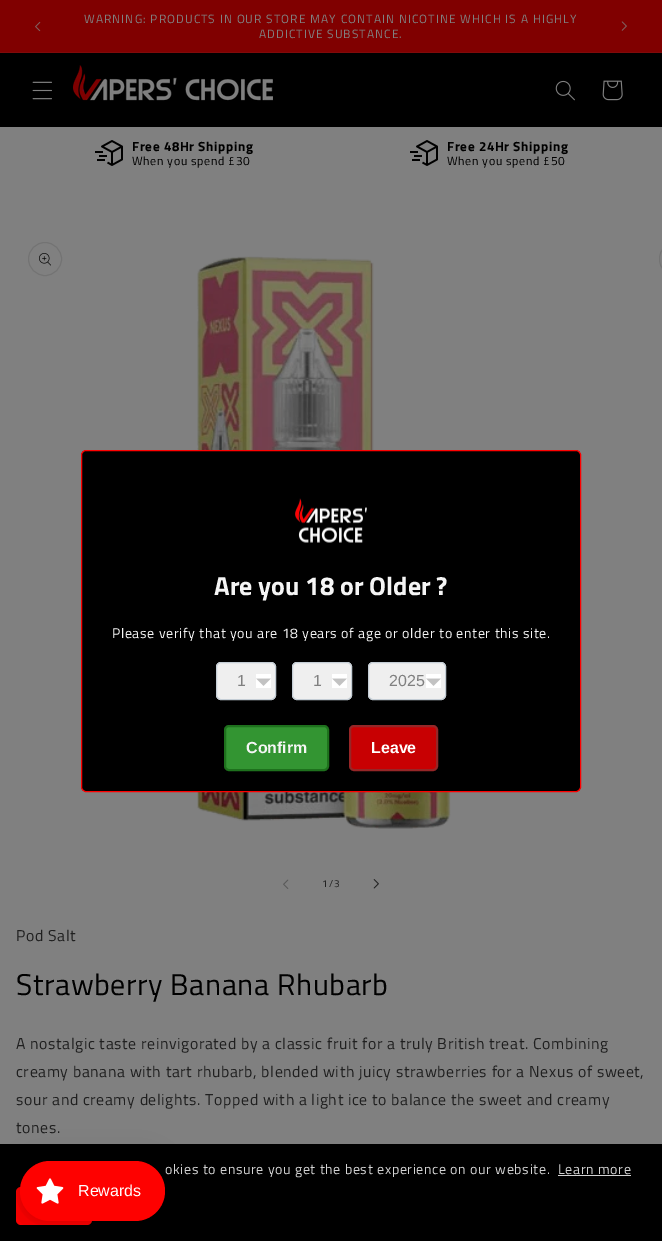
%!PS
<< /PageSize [662 1241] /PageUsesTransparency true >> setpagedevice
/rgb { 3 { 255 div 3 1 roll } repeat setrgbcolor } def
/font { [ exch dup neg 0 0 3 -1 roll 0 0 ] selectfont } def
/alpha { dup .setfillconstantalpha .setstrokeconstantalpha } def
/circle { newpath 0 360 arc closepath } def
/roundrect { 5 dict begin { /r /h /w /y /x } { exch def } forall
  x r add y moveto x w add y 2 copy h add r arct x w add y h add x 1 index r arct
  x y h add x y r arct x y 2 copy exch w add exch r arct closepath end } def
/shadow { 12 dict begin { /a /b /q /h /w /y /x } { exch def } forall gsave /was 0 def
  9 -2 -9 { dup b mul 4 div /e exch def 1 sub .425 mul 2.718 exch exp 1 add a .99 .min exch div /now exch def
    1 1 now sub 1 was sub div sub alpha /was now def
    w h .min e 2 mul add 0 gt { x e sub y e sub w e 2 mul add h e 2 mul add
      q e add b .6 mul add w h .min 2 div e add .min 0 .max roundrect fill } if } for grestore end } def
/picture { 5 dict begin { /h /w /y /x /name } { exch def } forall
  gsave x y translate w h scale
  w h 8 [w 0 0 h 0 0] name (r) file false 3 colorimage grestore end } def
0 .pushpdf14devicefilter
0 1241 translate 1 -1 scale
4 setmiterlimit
128 128 128 rgb
0 0 662 1241 rectfill
128 0 0 rgb
0 0 662 52 rectfill
128 10 10 rgb
0 52 662 1 rectfill
(img/1.rgb) 35 21 6 11 picture
(img/2.rgb) 621 21 6 10 picture
0 0 0 rgb
0 53 662 74 rectfill
(img/3.rgb) 32 81 20 19 picture
(img/4.rgb) 73 65 200 36 picture
(img/5.rgb) 555 80 20 21 picture
(img/6.rgb) 602 80 21 21 picture
(img/7.rgb) 95 140 28 26 picture
(img/7.rgb) 410 140 28 26 picture
(img/11.rgb) 197 256 254 573 picture
81.5 450.5 499 341 4.5 roundrect gsave fill grestore
255 0 0 rgb
stroke
(img/8.rgb) 295 498 72 45 picture
239 239 239 rgb
216 662 60 38 5 roundrect fill
(img/9.rgb) 256 674 15 14 picture
196 205 213 rgb
216.5 662.5 59 37 4.5 roundrect stroke
239 239 239 rgb
292 662 60 38 5 roundrect fill
(img/9.rgb) 332 674 15 14 picture
196 205 213 rgb
292.5 662.5 59 37 4.5 roundrect stroke
239 239 239 rgb
368 662 78 38 5 roundrect fill
(img/9.rgb) 426 674 15 14 picture
196 205 213 rgb
368.5 662.5 77 37 4.5 roundrect stroke
51 149 50 rgb
225 726 103 44 4 roundrect gsave fill grestore
30 113 29 rgb
2 setlinewidth
stroke
200 0 2 rgb
350 726 87 44 4 roundrect gsave fill grestore
150 38 39 rgb
stroke
115 115 115 rgb
1 setlinewidth
45 259 16.5 circle stroke
(img/10.rgb) 39 253 12 13 picture
659.5 242.5 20 33 16 roundrect stroke
(img/12.rgb) 283 879 6 10 picture
(img/13.rgb) 373 879 6 10 picture
0 0 0 rgb
0 1144 662 97 rectfill
211 211 211 rgb
558 1175 73 1 rectfill
255 0 0 rgb
16 1187 76 38 5 roundrect fill
0 0 0 rgb
20 1163 145 60 30 15 0.15 shadow
20 1162 145 60 30 3 0.05 shadow
254 1 0 rgb
20 1161 145 60 30 roundrect fill
(img/14.rgb) 36 1178 28 26 picture
/TitilliumWeb-Regular 12 font
128 128 128 rgb
84 23 moveto 1.05 0 (WARNING: PRODUCTS IN OUR STORE MAY CONTAIN NICOTINE WHICH IS A HIGHLY) ashow
259 38 moveto 1.05 0 (ADDICTIVE SUBSTANCE.) ashow
/TitilliumWeb-Bold 13.25 font
0 0 0 rgb
132 151 moveto 0.63 0 (Free 48Hr Shipping) ashow
/TitilliumWeb-Regular 12 font
132 165 moveto 0.63 0 (When you spend £30) ashow
/TitilliumWeb-Bold 13.25 font
447 151 moveto 0.63 0 (Free 24Hr Shipping) ashow
/TitilliumWeb-Regular 12 font
447 165 moveto 0.63 0 (When you spend £50) ashow
/TitilliumWeb-Bold 26 font
245 245 245 rgb
214 595 moveto (Are you 18 or Older ?) show
/TitilliumWeb-Regular 14 font
112 638 moveto 0.63 0 (Please verify that you are 18 years of age or older to enter this site.) ashow
/LiberationSans-Regular 16 font
128 128 128 rgb
[
  [(1) 237 686]
  [(1) 313 686]
  [(2025) 389 686]
] { aload pop moveto show } forall
/LiberationSans-Bold 16 font
245 245 245 rgb
246 753 moveto (Confirm) show
255 255 255 rgb
371 753 moveto (Leave) show
/TitilliumWeb-Regular 10 font
32 32 32 rgb
322 887 moveto 1 0 (1/3) ashow
/TitilliumWeb-Regular 15.75 font
16 941 moveto 0.63 0 (Pod Salt) ashow
/TitilliumWeb-Regular 30 font
0 0 0 rgb
16 995 moveto 0.6 0 (Strawberry Banana Rhubarb) ashow
/TitilliumWeb-Regular 15.75 font
32 32 32 rgb
16 1049 moveto 0.63 0 (A nostalgic taste reinvigorated by a classic fruit for a truly British treat. Combining) ashow
16 1077 moveto 0.63 0 (creamy banana with tart rhubarb, blended with juicy strawberries for a Nexus of sweet,) ashow
16 1105 moveto 0.63 0 (sour and creamy delights. Topped with a light ice to balance the sweet and creamy) ashow
16 1133 moveto 0.63 0 (tones.) ashow
/TitilliumWeb-Regular 14 font
211 211 211 rgb
165 1174 moveto 0.63 0 (okies to ensure you get the best experience on our website.) ashow
558 1174 moveto 0.63 0 (Learn more) ashow
/LiberationSans-Regular 16 font
255 255 255 rgb
78 1196 moveto (Rewards) show
.poppdf14devicefilter showpage
